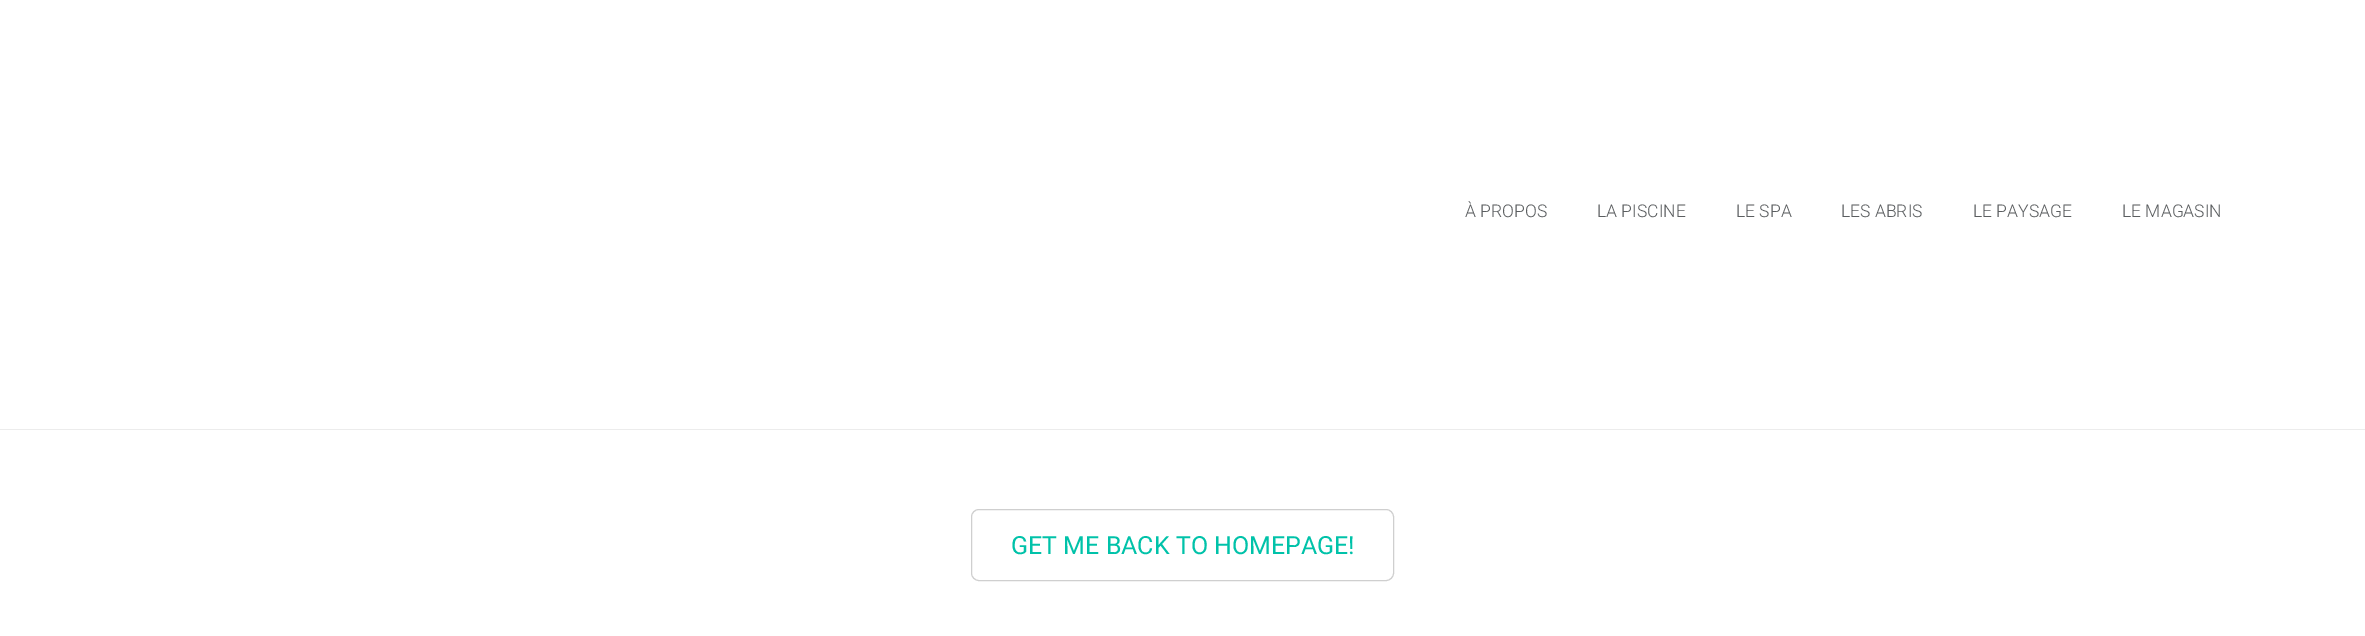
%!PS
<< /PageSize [2365 636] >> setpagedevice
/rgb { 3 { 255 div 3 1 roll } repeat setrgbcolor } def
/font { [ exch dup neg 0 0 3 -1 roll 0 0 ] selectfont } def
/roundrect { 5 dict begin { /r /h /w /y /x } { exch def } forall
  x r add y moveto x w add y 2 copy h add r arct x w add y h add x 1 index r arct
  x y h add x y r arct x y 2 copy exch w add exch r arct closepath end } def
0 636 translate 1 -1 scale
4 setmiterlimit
255 255 255 rgb
0 0 2365 636 rectfill
236 236 236 rgb
0 429 2365 1 rectfill
207 207 207 rgb
971.5 509.5 422 71 7.5 roundrect stroke
/Roboto-Light 17.5 font
91 94 96 rgb
[
  [(À PROPOS) 1465 217]
  [(LA PISCINE) 1597 217]
  [(LE SPA) 1736 217]
  [(LES ABRIS) 1841 217]
  [(LE PAYSAGE) 1973 217]
  [(LE MAGASIN) 2122 217]
] { aload pop moveto show } forall
/Roboto-Regular 25 font
0 194 169 rgb
1011 554 moveto (GET ME BACK TO HOMEPAGE!) show
showpage
